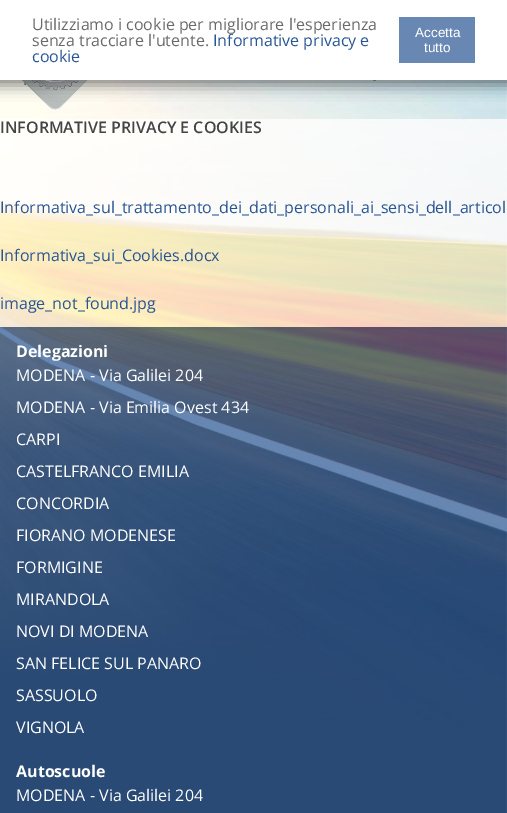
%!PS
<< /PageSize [507 813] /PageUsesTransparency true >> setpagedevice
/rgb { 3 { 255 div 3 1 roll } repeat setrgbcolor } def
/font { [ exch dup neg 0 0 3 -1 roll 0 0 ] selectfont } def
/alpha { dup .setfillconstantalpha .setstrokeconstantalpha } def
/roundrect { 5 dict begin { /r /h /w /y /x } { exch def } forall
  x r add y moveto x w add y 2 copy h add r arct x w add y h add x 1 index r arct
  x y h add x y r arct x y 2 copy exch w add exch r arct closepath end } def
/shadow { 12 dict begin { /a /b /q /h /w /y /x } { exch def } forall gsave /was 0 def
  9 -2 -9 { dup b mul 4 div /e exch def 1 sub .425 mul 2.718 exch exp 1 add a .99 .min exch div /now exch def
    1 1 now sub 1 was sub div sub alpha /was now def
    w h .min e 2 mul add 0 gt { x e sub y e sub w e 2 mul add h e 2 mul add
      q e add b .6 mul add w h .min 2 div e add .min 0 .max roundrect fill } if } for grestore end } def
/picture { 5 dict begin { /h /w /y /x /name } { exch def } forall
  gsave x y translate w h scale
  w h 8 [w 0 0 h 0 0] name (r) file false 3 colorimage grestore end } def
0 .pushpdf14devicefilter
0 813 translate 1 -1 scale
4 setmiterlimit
255 255 255 rgb
0 0 507 813 rectfill
(img/1.rgb) 0 80 507 733 picture
(img/2.rgb) 22 80 355 30 picture
0 0 0 rgb
-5 -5 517 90 0 7.5 0.5 shadow
[
  [0 0 507 80 255 255 255]
  [399 17 76 46 104 135 179]
] { aload pop rgb rectfill } forall
0.05 alpha
[
  [0 327 507 3 0 0 0]
] { aload pop rgb rectfill } forall
0.75 alpha
[
  [0 119 507 208 255 255 255]
] { aload pop rgb rectfill } forall
0.7 alpha
[
  [0 327 507 486 39 84 146]
] { aload pop rgb rectfill } forall
/OpenSans-Regular 16 font
1 alpha
105 105 105 rgb
32 30 moveto (Utilizziamo i cookie per migliorare l'esperienza) show
32 46 moveto (senza tracciare l'utente.) show
39 84 146 rgb
213 46 moveto (Informative privacy e) show
32 62 moveto (cookie) show
/LiberationSans-Regular 13.5 font
255 255 255 rgb
415 37 moveto (Accetta) show
424 52 moveto (tutto) show
/OpenSans-SemiBold 16 font
68 68 68 rgb
0 133 moveto (INFORMATIVE PRIVACY E COOKIES) show
/OpenSans-Regular 16 font
39 84 146 rgb
[
  [(Informativa_sul_trattamento_dei_dati_personali_ai_sensi_dell_articol) 0 213]
  [(Informativa_sui_Cookies.docx) 0 261]
  [(image_not_found.jpg) 0 309]
] { aload pop moveto show } forall
/OpenSans-Bold 16 font
255 255 255 rgb
16 357 moveto (Delegazioni) show
/OpenSans-Regular 16 font
[
  [(MODENA - Via Galilei 204) 16 381]
  [(MODENA - Via Emilia Ovest 434) 16 413]
  [(CARPI) 16 445]
  [(CASTELFRANCO EMILIA) 16 477]
  [(CONCORDIA) 16 509]
  [(FIORANO MODENESE) 16 541]
  [(FORMIGINE) 16 573]
  [(MIRANDOLA) 16 605]
  [(NOVI DI MODENA) 16 637]
  [(SAN FELICE SUL PANARO) 16 669]
  [(SASSUOLO) 16 701]
  [(VIGNOLA) 16 733]
] { aload pop moveto show } forall
/OpenSans-Bold 16 font
16 777 moveto (Autoscuole) show
/OpenSans-Regular 16 font
16 801 moveto (MODENA - Via Galilei 204) show
.poppdf14devicefilter showpage
